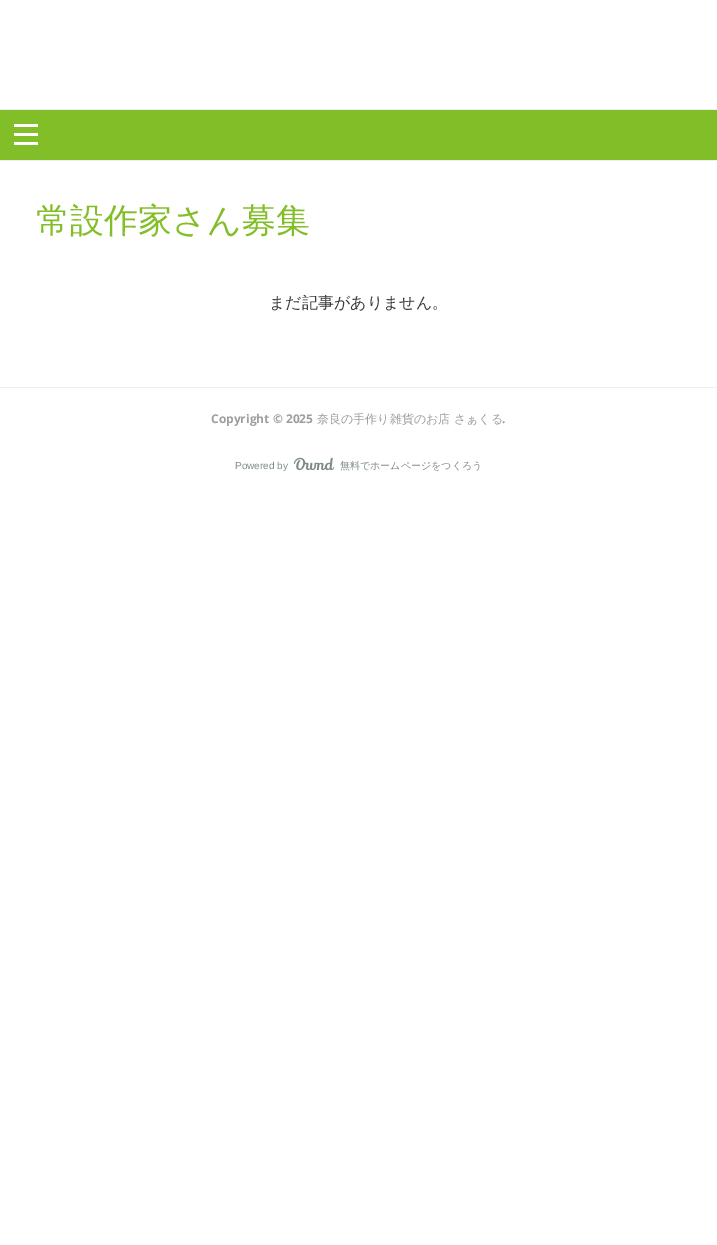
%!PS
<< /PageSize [717 1245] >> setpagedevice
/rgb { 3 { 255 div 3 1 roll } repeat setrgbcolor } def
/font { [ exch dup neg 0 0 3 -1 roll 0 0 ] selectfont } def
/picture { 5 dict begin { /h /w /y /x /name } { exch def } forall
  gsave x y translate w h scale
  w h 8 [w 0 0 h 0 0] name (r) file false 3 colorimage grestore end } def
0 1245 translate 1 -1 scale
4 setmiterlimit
255 255 255 rgb
0 0 717 1245 rectfill
[
  [0 109 717 1 238 238 238]
  [0 110 717 50 130 190 40]
  [0 160 717 1 238 238 238]
  [14 124 24 3 255 255 255]
  [14 133 24 3 255 255 255]
  [14 142 24 3 255 255 255]
  [0 387 717 1 238 238 238]
] { aload pop rgb rectfill } forall
(img/1.rgb) 293 457 42 14 picture
/WenQuanYiZenHei-Medium 34 font
130 190 40 rgb
36 232 moveto (常設作家さん募集) show
/WenQuanYiZenHei-Medium 16 font
59 59 59 rgb
269 308 moveto (まだ記事がありません。) show
/OpenSans-Bold 12 font
157 157 157 rgb
211 423 moveto (Copyright © 2025) show
/WenQuanYiZenHei-Medium 12 font
317 423 moveto (奈良の手作り雑貨のお店 さぁくる) show
/OpenSans-Bold 12 font
502 423 moveto (.) show
/LiberationSans-Regular 10 font
125 139 136 rgb
235 469 moveto (Powered by) show
/WenQuanYiZenHei-Medium 10 font
340 469 moveto (無料でホームページをつくろう) show
showpage
